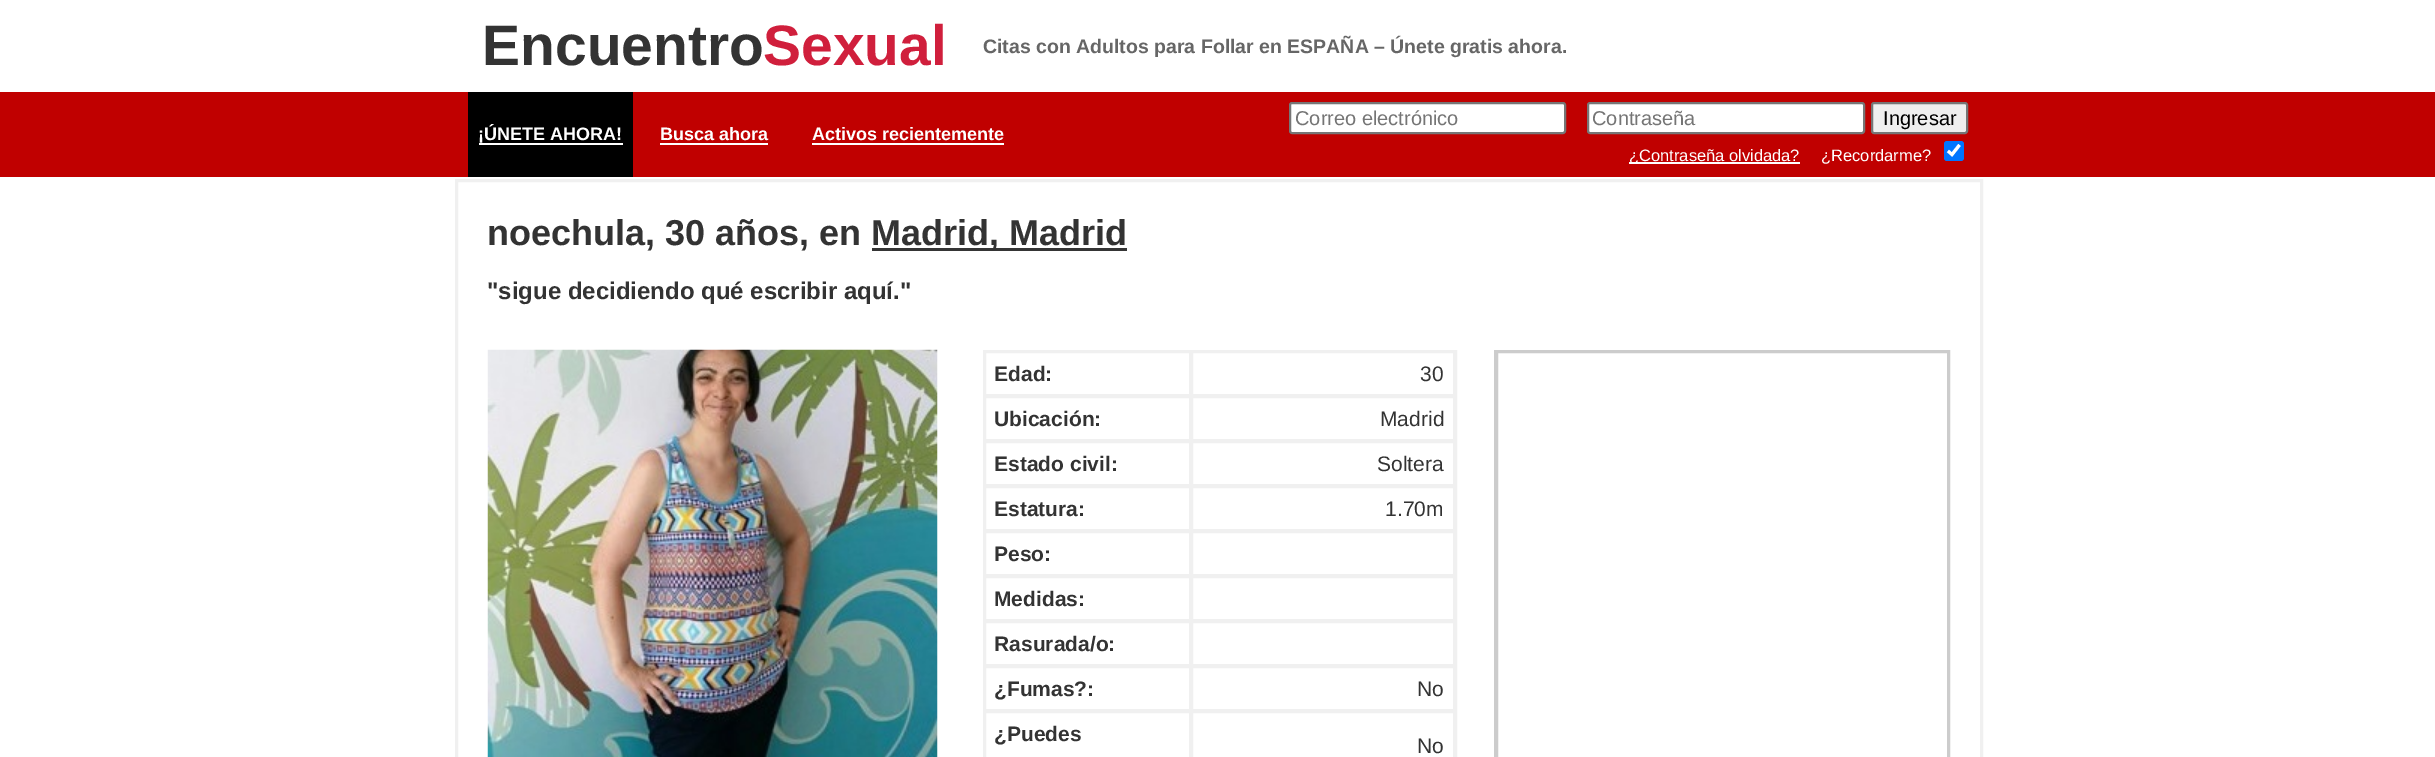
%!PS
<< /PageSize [2435 757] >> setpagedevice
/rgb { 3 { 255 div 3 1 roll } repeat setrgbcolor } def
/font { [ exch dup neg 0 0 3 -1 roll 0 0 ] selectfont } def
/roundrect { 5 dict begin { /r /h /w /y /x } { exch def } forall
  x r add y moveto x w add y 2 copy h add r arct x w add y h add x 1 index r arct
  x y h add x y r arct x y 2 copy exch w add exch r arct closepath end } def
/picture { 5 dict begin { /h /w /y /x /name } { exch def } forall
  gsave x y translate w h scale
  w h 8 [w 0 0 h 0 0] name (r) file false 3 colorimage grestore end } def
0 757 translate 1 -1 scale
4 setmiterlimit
255 255 255 rgb
0 0 2435 757 rectfill
[
  [0 92 2435 85 192 0 0]
  [468 92 165 85 0 0 0]
  [479 143 144 2 255 255 255]
  [660 143 108 2 255 255 255]
  [812 143 192 2 255 255 255]
] { aload pop rgb rectfill } forall
1290 103 275 30 2 roundrect gsave fill grestore
118 118 118 rgb
2 setlinewidth
stroke
255 255 255 rgb
1588 103 276 30 2 roundrect gsave fill grestore
118 118 118 rgb
stroke
239 239 239 rgb
1872 103 95 30 2 roundrect gsave fill grestore
118 118 118 rgb
stroke
255 255 255 rgb
1629 162 171 2 rectfill
0 117 255 rgb
1944 141 20 20 3 roundrect fill
255 255 255 rgb
3.1 setlinewidth
1948 151 moveto 1952 154.5 lineto 1959.5 145 lineto stroke
240 240 240 rgb
2 setlinewidth
456 180 1526 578 rectstroke
457 181 1524 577 rectstroke
53 53 53 rgb
872 248 255 3 rectfill
(img/1.rgb) 487 349 451 408 picture
240 240 240 rgb
984 351 472 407 rectstroke
985 352 205 43 rectstroke
1192 352 262 43 rectstroke
985 397 205 43 rectstroke
1192 397 262 43 rectstroke
985 442 205 43 rectstroke
1192 442 262 43 rectstroke
985 487 205 43 rectstroke
1192 487 262 43 rectstroke
985 532 205 43 rectstroke
1192 532 262 43 rectstroke
985 577 205 43 rectstroke
1192 577 262 43 rectstroke
985 622 205 43 rectstroke
1192 622 262 43 rectstroke
985 667 205 43 rectstroke
1192 667 262 43 rectstroke
985 712 205 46 rectstroke
1192 712 262 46 rectstroke
204 204 204 rgb
1495 351 454 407 rectstroke
1497 352 451 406 rectstroke
/LiberationSans-Bold 57 font
51 51 51 rgb
482 65 moveto (Encuentro) show
208 31 60 rgb
763 65 moveto (Sexual) show
/LiberationSans-Bold 19.5 font
102 102 102 rgb
983 53 moveto (Citas con Adultos para Follar en ESPAÑA – Únete gratis ahora.) show
/LiberationSans-Bold 18 font
255 255 255 rgb
[
  [(¡ÚNETE AHORA!) 478 140]
  [(Busca ahora) 660 140]
  [(Activos recientemente) 812 140]
] { aload pop moveto show } forall
/LiberationSans-Regular 20 font
117 117 117 rgb
1295 125 moveto (Correo electrónico) show
1592 125 moveto (Contraseña) show
0 0 0 rgb
1883 125 moveto (Ingresar) show
/LiberationSans-Regular 16.5 font
255 255 255 rgb
1629 161 moveto (¿Contraseña olvidada?) show
1821 161 moveto (¿Recordarme?) show
/LiberationSans-Bold 36 font
51 51 51 rgb
487 245 moveto (noechula, 30 años, en) show
871 245 moveto (Madrid, Madrid) show
/LiberationSans-Bold 24 font
487 299 moveto ("sigue decidiendo qué escribir aquí.") show
/LiberationSans-Bold 21 font
994 381 moveto (Edad:) show
/LiberationSans-Regular 21 font
1420 381 moveto (30) show
/LiberationSans-Bold 21 font
994 426 moveto (Ubicación:) show
/LiberationSans-Regular 21 font
1380 426 moveto (Madrid) show
/LiberationSans-Bold 21 font
994 471 moveto (Estado civil:) show
/LiberationSans-Regular 21 font
1377 471 moveto (Soltera) show
/LiberationSans-Bold 21 font
994 516 moveto (Estatura:) show
/LiberationSans-Regular 21 font
1385 516 moveto (1.70m) show
/LiberationSans-Bold 21 font
[
  [(Peso:) 994 561]
  [(Medidas:) 994 606]
  [(Rasurada/o:) 994 651]
  [(¿Fumas?:) 994 696]
] { aload pop moveto show } forall
/LiberationSans-Regular 21 font
1417 696 moveto (No) show
/LiberationSans-Bold 21 font
994 741 moveto (¿Puedes) show
/LiberationSans-Regular 21 font
1417 753 moveto (No) show
showpage
